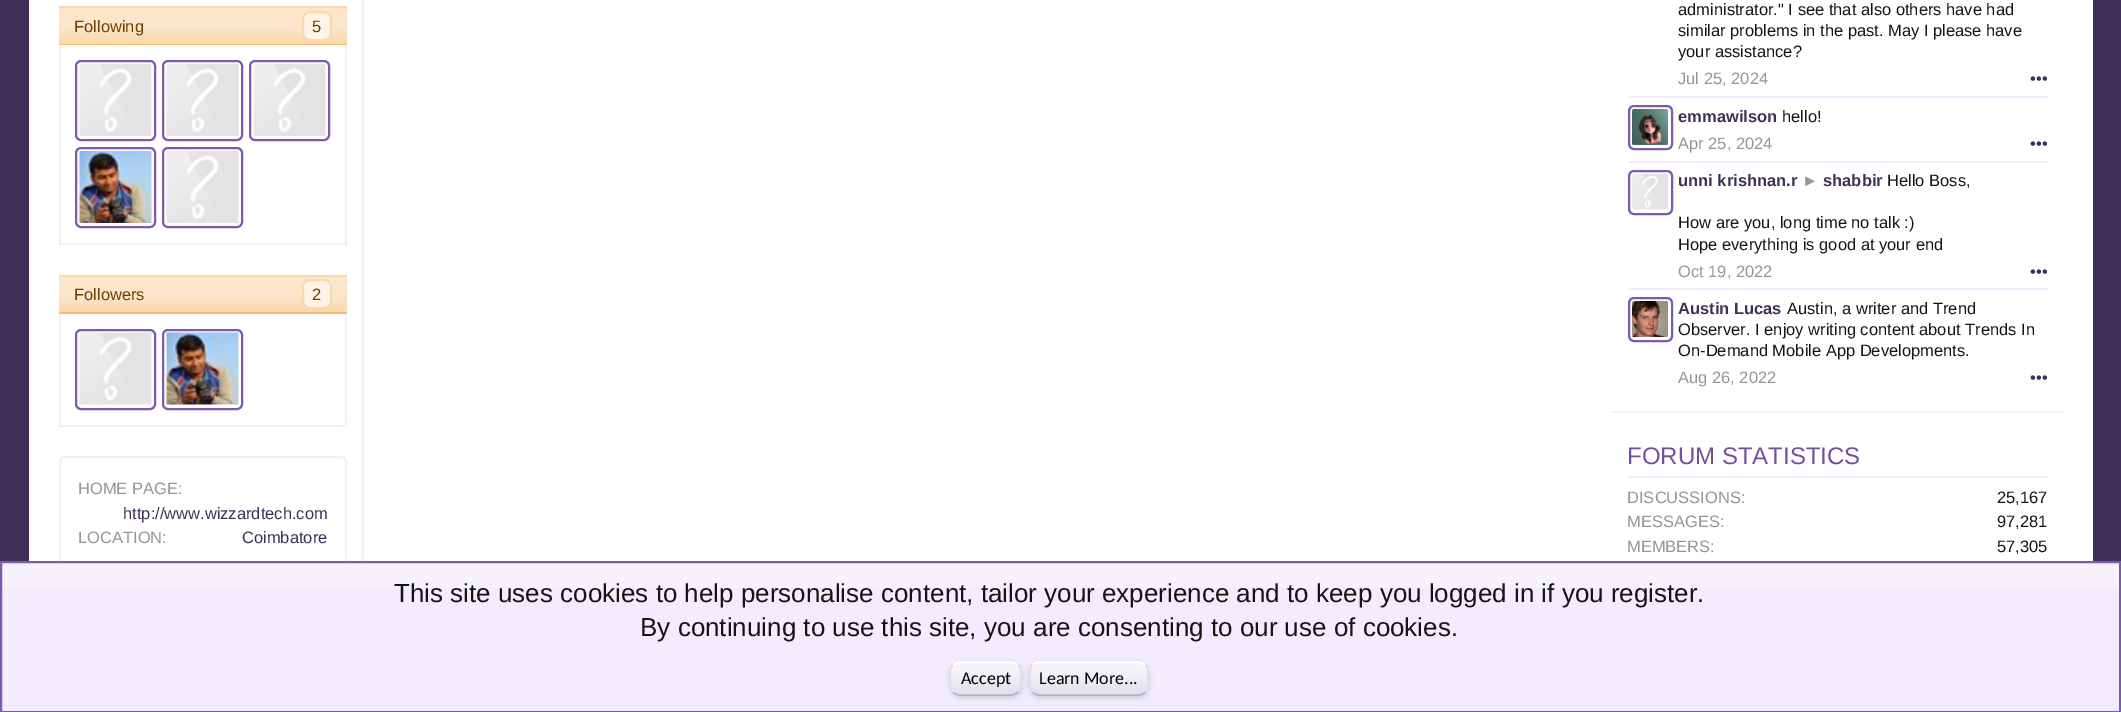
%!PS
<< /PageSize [2121 712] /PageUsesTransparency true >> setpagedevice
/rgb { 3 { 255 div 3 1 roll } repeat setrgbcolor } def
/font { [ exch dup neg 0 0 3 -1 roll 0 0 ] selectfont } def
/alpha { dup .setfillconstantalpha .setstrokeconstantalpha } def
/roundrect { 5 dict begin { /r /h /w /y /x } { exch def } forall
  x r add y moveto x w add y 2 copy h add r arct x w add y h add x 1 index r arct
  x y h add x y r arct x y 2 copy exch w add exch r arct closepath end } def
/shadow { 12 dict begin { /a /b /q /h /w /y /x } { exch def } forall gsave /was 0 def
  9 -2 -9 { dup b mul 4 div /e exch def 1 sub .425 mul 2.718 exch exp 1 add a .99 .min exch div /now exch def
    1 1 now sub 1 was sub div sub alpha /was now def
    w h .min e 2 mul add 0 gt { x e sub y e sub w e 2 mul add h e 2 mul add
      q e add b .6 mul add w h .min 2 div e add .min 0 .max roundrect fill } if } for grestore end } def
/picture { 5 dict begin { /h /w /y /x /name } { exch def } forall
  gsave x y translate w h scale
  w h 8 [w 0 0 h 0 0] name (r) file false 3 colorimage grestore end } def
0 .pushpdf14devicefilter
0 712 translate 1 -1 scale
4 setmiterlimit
63 47 89 rgb
0 0 2121 712 rectfill
[
  [29 0 2064 561 255 255 255]
  [362 0 2 561 243 236 254]
  [59 6 288 38 249 217 176]
] { aload pop rgb rectfill } forall
(img/1.rgb) 59 8 288 31 picture
249 188 109 rgb
59 44 288 1 rectfill
255 244 229 rgb
303 12 28 28 7 roundrect gsave fill grestore
249 217 176 rgb
2 setlinewidth
stroke
[
  [345 45 2 200 243 236 254]
  [59 243 288 2 243 236 254]
  [59 45 2 200 243 236 254]
] { aload pop rgb rectfill } forall
(img/2.rgb) 79 64 73 72 picture
124 91 175 rgb
76 61 79 79 5 roundrect stroke
(img/2.rgb) 166 64 73 72 picture
163 61 79 79 5 roundrect stroke
(img/2.rgb) 253 64 73 72 picture
250 61 79 79 5 roundrect stroke
(img/3.rgb) 79 151 73 72 picture
76 148 79 79 5 roundrect stroke
(img/2.rgb) 166 151 73 72 picture
163 148 79 79 5 roundrect stroke
249 217 176 rgb
59 275 288 37 rectfill
(img/4.rgb) 59 277 288 31 picture
249 188 109 rgb
59 312 288 2 rectfill
255 244 229 rgb
303 280 28 28 7 roundrect gsave fill grestore
249 217 176 rgb
stroke
[
  [345 314 2 112 243 236 254]
  [59 425 288 2 243 236 254]
  [59 314 2 112 243 236 254]
] { aload pop rgb rectfill } forall
(img/5.rgb) 79 332 73 73 picture
124 91 175 rgb
76 330 79 79 5 roundrect stroke
(img/6.rgb) 166 332 73 73 picture
163 330 79 79 5 roundrect stroke
243 236 254 rgb
60 457 286 162 5 roundrect stroke
1613 411 450 2 rectfill
1628 96 420 2 rectfill
124 91 175 rgb
1629 106 43 43 5 roundrect stroke
(img/7.rgb) 1632 109 36 36 picture
243 236 254 rgb
1628 161 420 2 rectfill
124 91 175 rgb
1629 171 43 43 5 roundrect stroke
(img/8.rgb) 1632 173 36 37 picture
243 236 254 rgb
1628 288 420 2 rectfill
124 91 175 rgb
1629 298 43 43 5 roundrect stroke
(img/9.rgb) 1632 301 36 36 picture
243 236 254 rgb
1628 476 420 2 rectfill
2 563 2117 148 rectfill
(img/10.rgb) 2 563 2117 25 picture
124 91 175 rgb
1 562 2119 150 rectstroke
200 200 210 rgb
950 663 72 35 11 3 1 shadow
220 220 235 rgb
950 662 72 34 11 roundrect fill
(img/11.rgb) 950 663 72 31 picture
255 255 255 rgb
1.5 setlinewidth
953 665 moveto 955 663.5 957.5 662 960 662 curveto 1011 662 lineto 1013.5 662 1016 663.5 1018 665 curveto stroke
221 221 235 rgb
1018 665 moveto 1021.5 669 1021 674 1021 679 curveto 1021 683.5 1021.5 688.5 1018 692.5 curveto stroke
179 179 189 rgb
1018 692.5 moveto 1016 694 1013.5 695 1011 695 curveto 960 695 lineto 957.5 695 955 694 953 692.5 curveto stroke
221 221 235 rgb
953 692.5 moveto 949.5 688.5 950 683.5 950 679 curveto 950 674 949.5 669 953 665 curveto stroke
200 200 210 rgb
1029 663 120 35 11 3 1 shadow
220 220 235 rgb
1029 662 120 34 11 roundrect fill
(img/12.rgb) 1029 663 120 31 picture
255 255 255 rgb
1032.5 665 moveto 1034.5 663.5 1037 662 1039.5 662 curveto 1138.5 662 lineto 1141 662 1143.5 663.5 1145.5 665 curveto stroke
221 221 235 rgb
1145.5 665 moveto 1149 669 1148 674 1148 679 curveto 1148 683.5 1149 688.5 1145.5 692.5 curveto stroke
179 179 189 rgb
1145.5 692.5 moveto 1143.5 694 1141 695 1138.5 695 curveto 1039.5 695 lineto 1037 695 1034.5 694 1032.5 692.5 curveto stroke
221 221 235 rgb
1032.5 692.5 moveto 1029 688.5 1030 683.5 1030 679 curveto 1030 674 1029 669 1032.5 665 curveto stroke
/LiberationSans-Regular 16.5 font
109 63 3 rgb
[
  [(Following) 74 32]
  [(5) 312 32]
  [(Followers) 74 300]
  [(2) 312 300]
] { aload pop moveto show } forall
150 150 150 rgb
78 494 moveto (HOME PAGE:) show
63 47 89 rgb
123 519 moveto (http://www.wizzardtech.com) show
150 150 150 rgb
78 543 moveto (LOCATION:) show
63 47 89 rgb
242 543 moveto (Coimbatore) show
20 20 20 rgb
[
  [(administrator." I see that also others have had) 1678 15]
  [(similar problems in the past. May I please have) 1678 36]
  [(your assistance?) 1678 57]
] { aload pop moveto show } forall
150 150 150 rgb
1678 84 moveto (Jul 25, 2024) show
63 47 89 rgb
2030 84 moveto (•••) show
/LiberationSans-Bold 16.5 font
1678 122 moveto (emmawilson) show
/LiberationSans-Regular 16.5 font
20 20 20 rgb
1782 122 moveto (hello!) show
150 150 150 rgb
1678 149 moveto (Apr 25, 2024) show
63 47 89 rgb
2030 149 moveto (•••) show
/LiberationSans-Bold 16.5 font
1678 186 moveto (unni krishnan.r) show
150 150 150 rgb
1802 186 moveto (►) show
63 47 89 rgb
1823 186 moveto (shabbir) show
/LiberationSans-Regular 16.5 font
20 20 20 rgb
[
  [(Hello Boss,) 1887 186]
  [(How are you, long time no talk :\)) 1678 228]
  [(Hope everything is good at your end) 1678 250]
] { aload pop moveto show } forall
150 150 150 rgb
1678 277 moveto (Oct 19, 2022) show
63 47 89 rgb
2030 277 moveto (•••) show
/LiberationSans-Bold 16.5 font
1678 314 moveto (Austin Lucas) show
/LiberationSans-Regular 16.5 font
20 20 20 rgb
[
  [(Austin, a writer and Trend) 1787 314]
  [(Observer. I enjoy writing content about Trends In) 1678 335]
  [(On-Demand Mobile App Developments.) 1678 356]
] { aload pop moveto show } forall
150 150 150 rgb
1678 383 moveto (Aug 26, 2022) show
63 47 89 rgb
2030 383 moveto (•••) show
/LiberationSans-Regular 24 font
111 82 156 rgb
1627 464 moveto (FORUM STATISTICS) show
/LiberationSans-Regular 16.5 font
150 150 150 rgb
1627 503 moveto (DISCUSSIONS:) show
20 20 20 rgb
1997 503 moveto (25,167) show
150 150 150 rgb
1627 527 moveto (MESSAGES:) show
20 20 20 rgb
1997 527 moveto (97,281) show
150 150 150 rgb
1627 552 moveto (MEMBERS:) show
20 20 20 rgb
1997 552 moveto (57,305) show
/LiberationSans-Regular 26 font
394 602 moveto (This site uses cookies to help personalise content, tailor your experience and to keep you logged in if you register.) show
640 636 moveto (By continuing to use this site, you are consenting to our use of cookies.) show
/Carlito-Regular 18 font
0 0 0 rgb
961 684 moveto (Accept) show
1039 684 moveto (Learn More...) show
.poppdf14devicefilter showpage
